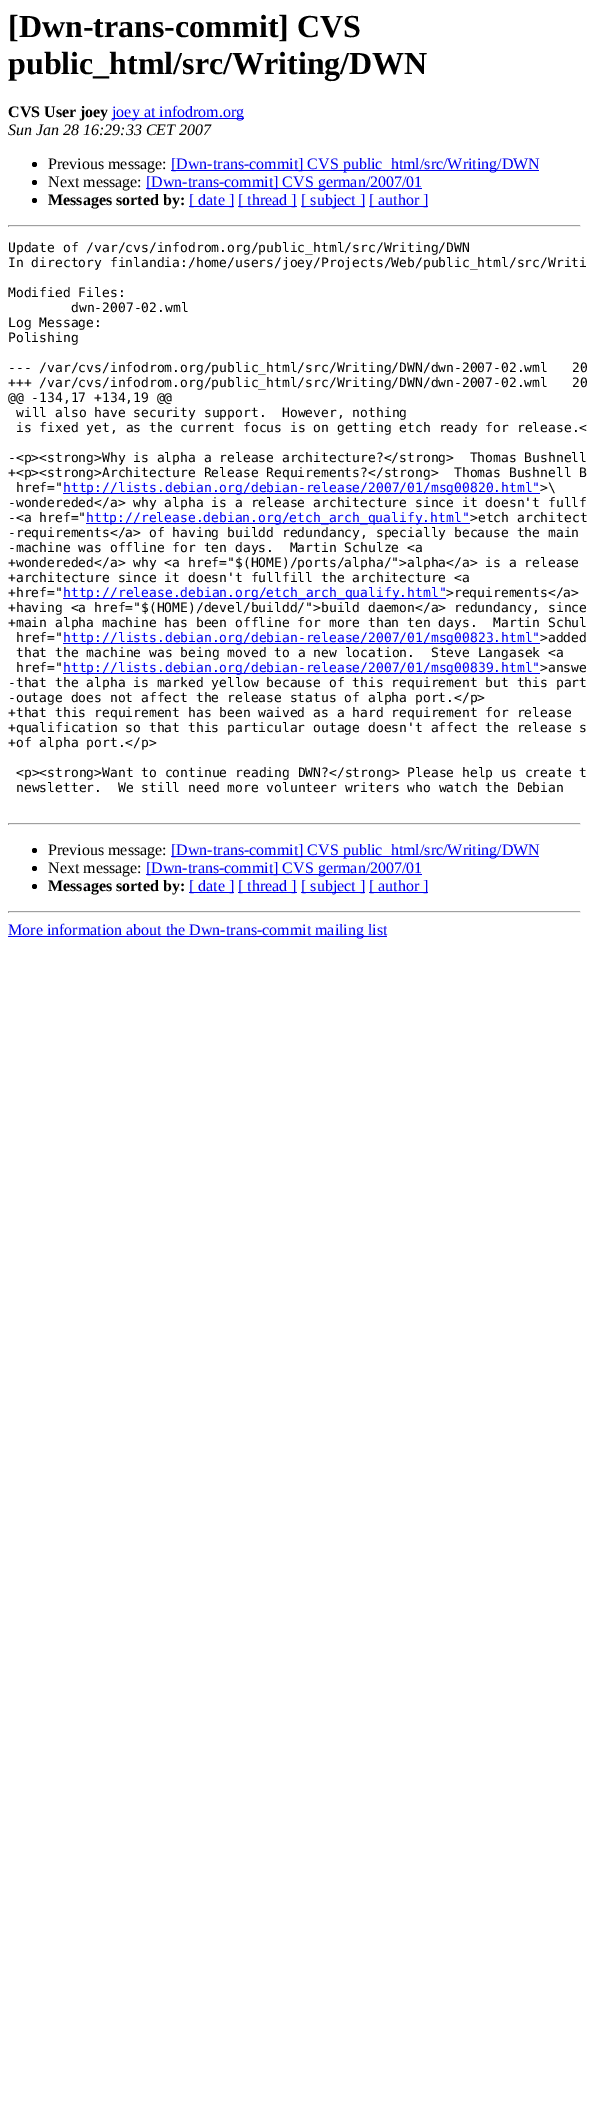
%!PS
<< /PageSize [589 2107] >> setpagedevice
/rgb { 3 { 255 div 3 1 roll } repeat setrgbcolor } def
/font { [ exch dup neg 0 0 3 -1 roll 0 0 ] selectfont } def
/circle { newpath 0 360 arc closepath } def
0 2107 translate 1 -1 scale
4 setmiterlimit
255 255 255 rgb
0 0 589 2107 rectfill
0 0 238 rgb
112 118 132 1 rectfill
0 0 0 rgb
34.5 164.5 2.5 circle fill
0 0 238 rgb
171 170 368 1 rectfill
0 0 0 rgb
34.5 182.5 2.5 circle fill
0 0 238 rgb
146 188 276 1 rectfill
0 0 0 rgb
34.5 200.5 2.5 circle fill
[
  [189 206 45 1 0 0 238]
  [238 206 59 1 0 0 238]
  [301 206 64 1 0 0 238]
  [369 206 59 1 0 0 238]
  [8 225 573 1 159 159 159]
  [580 225 1 2 238 238 238]
  [8 226 573 1 238 238 238]
  [8 225 1 2 159 159 159]
  [63 493 477 1 0 0 238]
  [86 523 384 1 0 0 238]
  [63 598 383 1 0 0 238]
  [63 643 477 1 0 0 238]
  [63 673 477 1 0 0 238]
  [8 823 573 1 159 159 159]
  [580 823 1 2 238 238 238]
  [8 824 573 1 238 238 238]
  [8 823 1 2 159 159 159]
] { aload pop rgb rectfill } forall
0 0 0 rgb
34.5 850.5 2.5 circle fill
0 0 238 rgb
171 856 368 1 rectfill
0 0 0 rgb
34.5 868.5 2.5 circle fill
0 0 238 rgb
146 874 276 1 rectfill
0 0 0 rgb
34.5 886.5 2.5 circle fill
[
  [189 892 45 1 0 0 238]
  [238 892 59 1 0 0 238]
  [301 892 64 1 0 0 238]
  [369 892 59 1 0 0 238]
  [8 911 573 1 159 159 159]
  [580 911 1 2 238 238 238]
  [8 912 573 1 238 238 238]
  [8 911 1 2 159 159 159]
  [8 936 379 1 0 0 238]
] { aload pop rgb rectfill } forall
/LiberationSerif-Bold 32 font
0 0 0 rgb
8 37 moveto ([Dwn-trans-commit] CVS) show
8 74 moveto (public_html/src/Writing/DWN) show
/LiberationSerif-Bold 16 font
8 117 moveto (CVS User joey) show
/LiberationSerif-Regular 16 font
0 0 238 rgb
112 117 moveto (joey at infodrom.org) show
/LiberationSerif-Italic 16 font
0 0 0 rgb
8 135 moveto (Sun Jan 28 16:29:33 CET 2007) show
/LiberationSerif-Regular 16 font
48 169 moveto (Previous message:) show
0 0 238 rgb
171 169 moveto ([Dwn-trans-commit] CVS public_html/src/Writing/DWN) show
0 0 0 rgb
48 187 moveto (Next message:) show
0 0 238 rgb
146 187 moveto ([Dwn-trans-commit] CVS german/2007/01) show
/LiberationSerif-Bold 16 font
0 0 0 rgb
48 205 moveto (Messages sorted by:) show
/LiberationSerif-Regular 16 font
0 0 238 rgb
[
  [([ date ]) 189 205]
  [([ thread ]) 238 205]
  [([ subject ]) 301 205]
  [([ author ]) 369 205]
] { aload pop moveto show } forall
/DejaVuSansMono-Regular 13 font
0 0 0 rgb
[
  [(Update of /var/cvs/infodrom.org/public_html/src/Writing/DWN) 8 252]
  [(In directory finlandia:/home/users/joey/Projects/Web/public_html/src/Writi) 8 267]
  [(Modified Files:) 8 297]
  [(dwn-2007-02.wml) 71 312]
  [(Log Message:) 8 327]
  [(Polishing) 8 342]
  [(--- /var/cvs/infodrom.org/public_html/src/Writing/DWN/dwn-2007-02.wml) 8 372]
  [(20) 572 372]
  [(+++ /var/cvs/infodrom.org/public_html/src/Writing/DWN/dwn-2007-02.wml) 8 387]
  [(20) 572 387]
  [(@@ -134,17 +134,19 @@) 8 402]
  [(will also have security support.  However, nothing) 16 417]
  [(is fixed yet, as the current focus is on getting etch ready for release.<) 16 432]
  [(-<p><strong>Why is alpha a release architecture?</strong>  Thomas Bushnell) 8 462]
  [(+<p><strong>Architecture Release Requirements?</strong>  Thomas Bushnell B) 8 477]
  [(href=") 16 492]
] { aload pop moveto show } forall
0 0 238 rgb
63 492 moveto (http://lists.debian.org/debian-release/2007/01/msg00820.html") show
0 0 0 rgb
[
  [(>\\) 540 492]
  [(-wondereded</a> why alpha is a release architecture since it doesn't fullf) 8 507]
  [(-<a href=") 8 522]
] { aload pop moveto show } forall
0 0 238 rgb
86 522 moveto (http://release.debian.org/etch_arch_qualify.html") show
0 0 0 rgb
[
  [(>etch architect) 470 522]
  [(-requirements</a> of having buildd redundancy, specially because the main) 8 537]
  [(-machine was offline for ten days.  Martin Schulze <a) 8 552]
  [(+wondereded</a> why <a href="$\(HOME\)/ports/alpha/">alpha</a> is a release) 8 567]
  [(+architecture since it doesn't fullfill the architecture <a) 8 582]
  [(+href=") 8 597]
] { aload pop moveto show } forall
0 0 238 rgb
63 597 moveto (http://release.debian.org/etch_arch_qualify.html") show
0 0 0 rgb
[
  [(>requirements</a>) 446 597]
  [(+having <a href="$\(HOME\)/devel/buildd/">build daemon</a> redundancy, since) 8 612]
  [(+main alpha machine has been offline for more than ten days.  Martin Schul) 8 627]
  [(href=") 16 642]
] { aload pop moveto show } forall
0 0 238 rgb
63 642 moveto (http://lists.debian.org/debian-release/2007/01/msg00823.html") show
0 0 0 rgb
[
  [(>added) 540 642]
  [(that the machine was being moved to a new location.  Steve Langasek <a) 16 657]
  [(href=") 16 672]
] { aload pop moveto show } forall
0 0 238 rgb
63 672 moveto (http://lists.debian.org/debian-release/2007/01/msg00839.html") show
0 0 0 rgb
[
  [(>answe) 540 672]
  [(-that the alpha is marked yellow because of this requirement but this part) 8 687]
  [(-outage does not affect the release status of alpha port.</p>) 8 702]
  [(+that this requirement has been waived as a hard requirement for release) 8 717]
  [(+qualification so that this particular outage doesn't affect the release s) 8 732]
  [(+of alpha port.</p>) 8 747]
  [(<p><strong>Want to continue reading DWN?</strong> Please help us create t) 16 777]
  [(newsletter.  We still need more volunteer writers who watch the Debian) 16 792]
] { aload pop moveto show } forall
/LiberationSerif-Regular 16 font
48 855 moveto (Previous message:) show
0 0 238 rgb
171 855 moveto ([Dwn-trans-commit] CVS public_html/src/Writing/DWN) show
0 0 0 rgb
48 873 moveto (Next message:) show
0 0 238 rgb
146 873 moveto ([Dwn-trans-commit] CVS german/2007/01) show
/LiberationSerif-Bold 16 font
0 0 0 rgb
48 891 moveto (Messages sorted by:) show
/LiberationSerif-Regular 16 font
0 0 238 rgb
[
  [([ date ]) 189 891]
  [([ thread ]) 238 891]
  [([ subject ]) 301 891]
  [([ author ]) 369 891]
  [(More information about the Dwn-trans-commit mailing list) 8 935]
] { aload pop moveto show } forall
showpage
